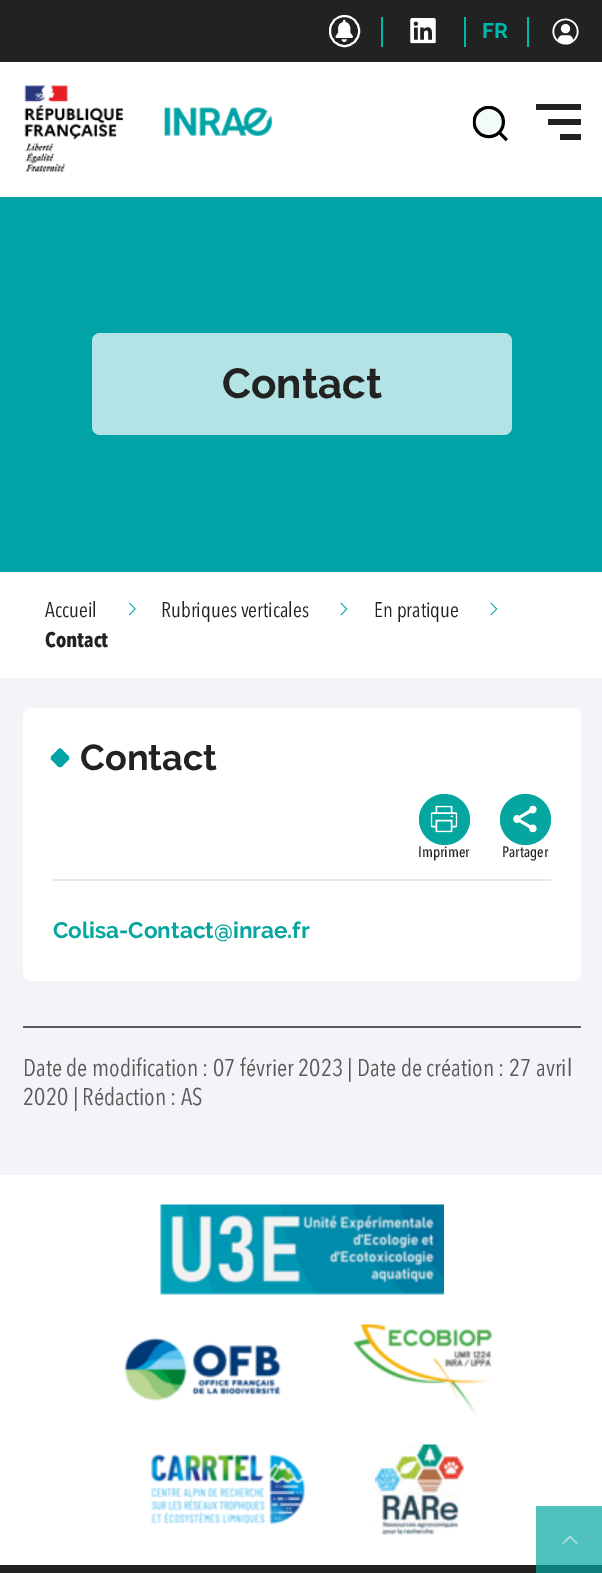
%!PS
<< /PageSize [602 1573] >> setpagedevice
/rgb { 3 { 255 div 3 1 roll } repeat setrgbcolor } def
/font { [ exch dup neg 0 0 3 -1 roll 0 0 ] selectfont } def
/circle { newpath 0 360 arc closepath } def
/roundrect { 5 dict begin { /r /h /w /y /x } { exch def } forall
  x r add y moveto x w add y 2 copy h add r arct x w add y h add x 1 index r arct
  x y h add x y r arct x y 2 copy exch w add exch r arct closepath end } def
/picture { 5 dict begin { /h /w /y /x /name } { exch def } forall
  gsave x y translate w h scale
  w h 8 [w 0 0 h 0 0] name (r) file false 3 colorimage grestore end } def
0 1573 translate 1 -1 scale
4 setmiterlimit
255 255 255 rgb
0 0 602 1573 rectfill
79 193 188 rgb
536 1506 66 59 rectfill
34 34 34 rgb
0 0 602 62 rectfill
255 255 255 rgb
2 setlinewidth
330 16 29 30 14.5 roundrect stroke
(img/1.rgb) 335 19 18 23 picture
0 185 171 rgb
381 17 2 30 rectfill
(img/2.rgb) 410 18 26 26 picture
464 17 2 30 rectfill
527 17 2 30 rectfill
(img/3.rgb) 552 18 27 27 picture
(img/4.rgb) 24 85 248 87 picture
(img/5.rgb) 472 106 36 36 picture
[
  [536 104 45 6 34 34 34]
  [548 119 33 6 34 34 34]
  [560 134 21 6 34 34 34]
  [0 197 602 375 0 163 166]
] { aload pop rgb rectfill } forall
179 227 228 rgb
92 333 420 102 8 roundrect fill
(img/6.rgb) 129 602 7 14 picture
(img/7.rgb) 340 602 8 14 picture
(img/7.rgb) 490 602 8 14 picture
243 243 248 rgb
0 678 602 497 rectfill
255 255 255 rgb
23 708 558 273 8 roundrect fill
234 234 234 rgb
53 879 498 2 rectfill
0 163 166 rgb
62 749.5 moveto 68.5 756 lineto 69.5 757 69.5 759 68.5 760 curveto 62 766.5 lineto 61 767.5 59 767.5 58 766.5 curveto 51.5 760 lineto 50.5 759 50.5 757 51.5 756 curveto 58 749.5 lineto 59 748 61 748 62 749.5 curveto closepath fill
4 166 159 rgb
444.5 819.5 25.5 circle fill
(img/8.rgb) 430 805 28 28 picture
525.5 819.5 25.5 circle fill
(img/9.rgb) 513 805 24 28 picture
89 89 89 rgb
23 1026 558 2 rectfill
(img/10.rgb) 160 1204 284 91 picture
(img/11.rgb) 124 1337 157 64 picture
(img/12.rgb) 354 1324 138 91 picture
(img/13.rgb) 151 1454 154 71 picture
(img/14.rgb) 375 1444 89 91 picture
(img/15.rgb) 562 1535 16 10 picture
34 34 34 rgb
0 1565 536 8 rectfill
13 126 122 rgb
536 1565 66 8 rectfill
/Raleway-Bold 21 font
0 185 171 rgb
482 38 moveto (FR) show
/Raleway-Bold 42 font
34 34 34 rgb
222 398 moveto (Contact) show
/AvenirNext-Regular 21 font
[
  [(Accueil) 45 617]
  [(Rubriques verticales) 161 617]
  [(En pratique) 374 617]
] { aload pop moveto show } forall
/AvenirNext-Bold 21 font
45 647 moveto (Contact) show
/Raleway-Bold 36 font
80 770 moveto (Contact) show
/AvenirNext-Medium 15 font
418 857 moveto (Imprimer) show
502 857 moveto (Partager) show
/Raleway-Bold 22.5 font
4 166 159 rgb
53 938 moveto (Colisa-Contact@inrae.fr) show
/AvenirNext-Regular 24 font
89 89 89 rgb
23 1076 moveto (Date de modification : 07 février 2023 | Date de création : 27 avril) show
23 1105 moveto (2020 | Rédaction : AS) show
showpage
